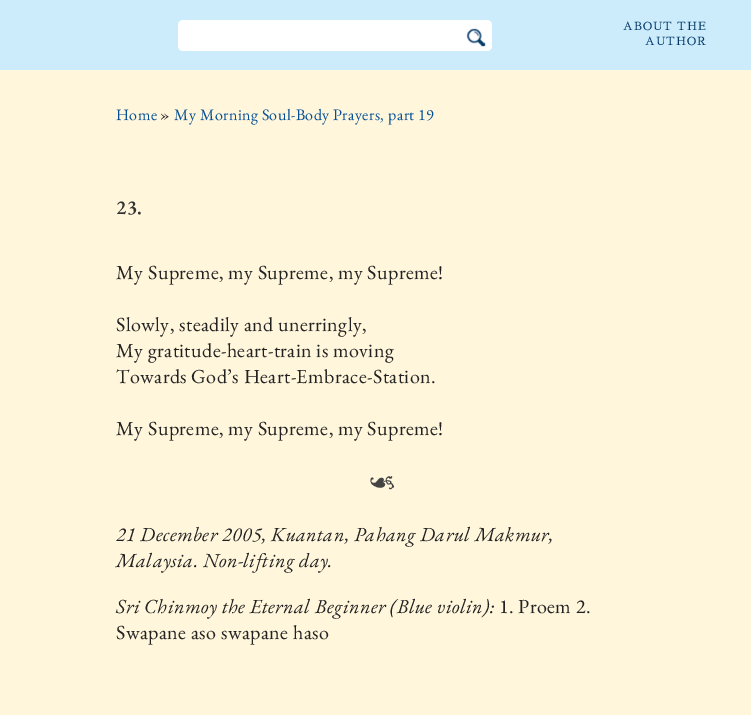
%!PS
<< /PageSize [751 715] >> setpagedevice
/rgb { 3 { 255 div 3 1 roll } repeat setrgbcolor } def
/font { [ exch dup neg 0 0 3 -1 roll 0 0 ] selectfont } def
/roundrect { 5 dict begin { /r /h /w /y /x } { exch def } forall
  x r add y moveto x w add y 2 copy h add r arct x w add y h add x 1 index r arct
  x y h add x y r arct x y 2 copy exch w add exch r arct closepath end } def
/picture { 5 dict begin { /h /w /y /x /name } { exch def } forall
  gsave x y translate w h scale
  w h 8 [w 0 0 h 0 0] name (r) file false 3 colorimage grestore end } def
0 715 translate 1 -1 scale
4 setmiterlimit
255 246 220 rgb
0 0 751 715 rectfill
204 236 252 rgb
0 0 751 70 rectfill
255 255 255 rgb
178 20 314 31 5 roundrect fill
(img/1.rgb) 466 28 20 19 picture
/SawarabiMincho-Regular 11.25 font
2 56 104 rgb
623 30 moveto 1 0 (ABOUT THE) ashow
645 45 moveto 1 0 (AUTHOR) ashow
/EBGaramond-Regular 16 font
3 79 149 rgb
116 120 moveto 0.4 0 (Home) ashow
34 34 34 rgb
160 120 moveto 0.4 0 (») ashow
3 79 149 rgb
174 120 moveto 0.4 0 (My Morning Soul-Body Prayers, part 19) ashow
/EBGaramond-SemiBold 20 font
51 51 51 rgb
116 214 moveto 0.4 0 (23.) ashow
/EBGaramond-Regular 20 font
34 34 34 rgb
116 279 moveto 0.4 0 (My Supreme, my Supreme, my Supreme!) ashow
116 331 moveto 0.4 0 (Slowly, steadily and unerringly,) ashow
116 357 moveto 0.4 0 (My gratitude-heart-train is moving) ashow
116 383 moveto 0.4 0 (Towards God’s Heart-Embrace-Station.) ashow
116 435 moveto 0.4 0 (My Supreme, my Supreme, my Supreme!) ashow
/EBGaramond-Regular 26 font
68 68 68 rgb
370 486 moveto 0.4 0 (☙) ashow
/EBGaramond-Italic 20 font
34 34 34 rgb
116 541 moveto 0.4 0 (21 December 2005, Kuantan, Pahang Darul Makmur,) ashow
116 567 moveto 0.4 0 (Malaysia. Non-lifting day.) ashow
116 613 moveto 0.4 0 (Sri Chinmoy the Eternal Beginner \(Blue violin\):) ashow
/EBGaramond-Regular 20 font
499 613 moveto 0.4 0 (1. Proem 2.) ashow
116 639 moveto 0.4 0 (Swapane aso swapane haso) ashow
showpage
